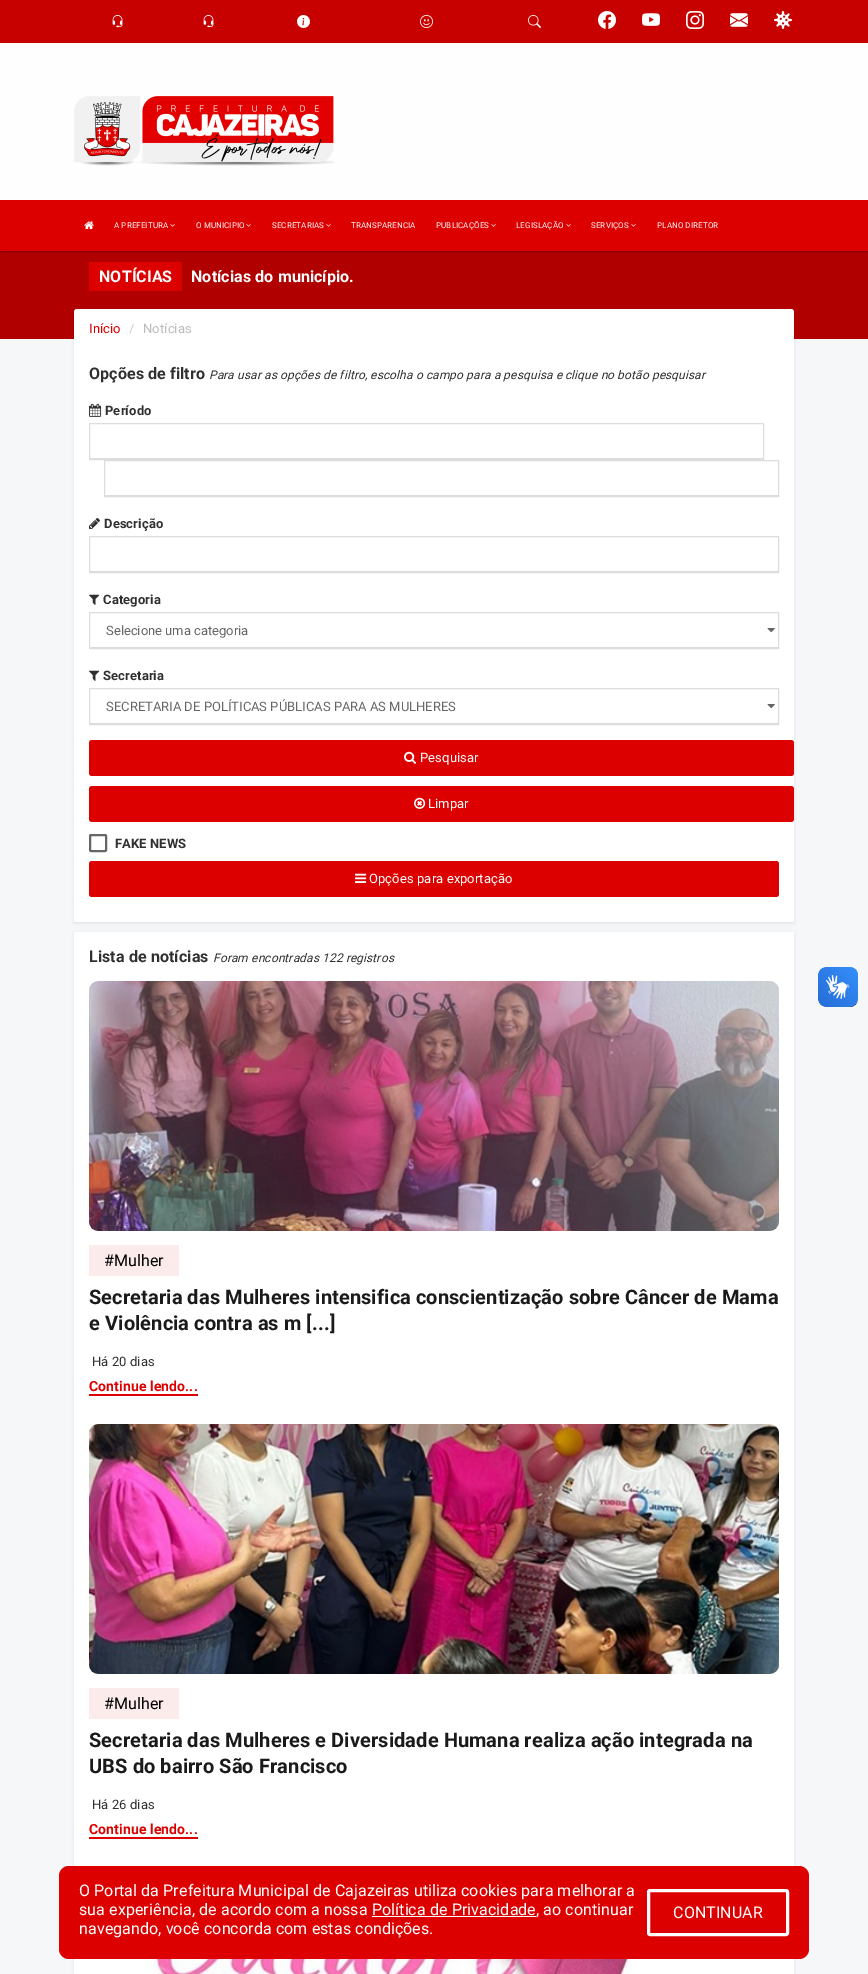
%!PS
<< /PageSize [868 1974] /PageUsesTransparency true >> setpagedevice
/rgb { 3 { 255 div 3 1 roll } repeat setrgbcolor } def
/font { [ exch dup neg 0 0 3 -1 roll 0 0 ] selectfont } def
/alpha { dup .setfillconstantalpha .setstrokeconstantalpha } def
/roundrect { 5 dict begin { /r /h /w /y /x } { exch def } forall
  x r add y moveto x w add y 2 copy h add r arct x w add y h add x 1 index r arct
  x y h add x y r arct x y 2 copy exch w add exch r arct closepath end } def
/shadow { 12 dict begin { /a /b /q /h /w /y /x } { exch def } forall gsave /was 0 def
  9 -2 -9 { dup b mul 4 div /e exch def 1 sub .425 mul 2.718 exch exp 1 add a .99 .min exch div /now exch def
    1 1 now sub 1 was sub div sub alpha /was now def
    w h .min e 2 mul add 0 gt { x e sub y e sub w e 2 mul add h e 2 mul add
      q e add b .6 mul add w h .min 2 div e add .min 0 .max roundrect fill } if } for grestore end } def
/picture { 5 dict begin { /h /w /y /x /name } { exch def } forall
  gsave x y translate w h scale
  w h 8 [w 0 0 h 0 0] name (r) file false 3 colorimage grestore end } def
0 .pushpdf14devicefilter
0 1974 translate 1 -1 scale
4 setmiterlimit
246 247 248 rgb
0 0 868 1974 rectfill
3 0 71 rgb
74 310 720 613 0 1.5 0.09 shadow
177 0 0 rgb
0 251 868 88 rectfill
0 0 0 rgb
0 1 868 251 0 1 0.3 shadow
254 254 254 rgb
0 43 868 157 rectfill
199 0 0 rgb
0 0 868 43 rectfill
(img/1.rgb) 112 15 11 13 picture
(img/1.rgb) 203 15 11 13 picture
(img/2.rgb) 297 15 13 13 picture
(img/3.rgb) 420 15 13 13 picture
(img/4.rgb) 528 15 13 13 picture
(img/5.rgb) 598 11 18 18 picture
(img/6.rgb) 642 13 18 13 picture
(img/7.rgb) 686 11 18 18 picture
(img/8.rgb) 730 13 18 14 picture
(img/9.rgb) 774 11 18 18 picture
(img/10.rgb) 74 96 260 70 picture
221 0 0 rgb
0 200 868 51 rectfill
(img/11.rgb) 84 221 10 8 picture
(img/12.rgb) 170 224 5 3 picture
(img/12.rgb) 246 224 5 3 picture
(img/12.rgb) 326 224 5 3 picture
(img/12.rgb) 491 224 5 3 picture
(img/12.rgb) 566 224 5 3 picture
(img/12.rgb) 631 224 5 3 picture
89 262 93 29 rectfill
255 255 255 rgb
74 346 720 576 rectfill
74 309 720 40 3 roundrect fill
(img/13.rgb) 89 403 13 14 picture
221 221 221 rgb
90 458 673 1 rectfill
89.5 423.5 674 36 rectstroke
105 495 673 1 rectfill
104.5 460.5 674 36 rectstroke
(img/14.rgb) 89 518 11 11 picture
90 571 688 1 rectfill
89.5 536.5 689 36 rectstroke
(img/15.rgb) 89 594 11 11 picture
(img/16.rgb) 767 628 8 5 picture
90 647 688 1 rectfill
89.5 612.5 689 36 rectstroke
(img/15.rgb) 89 670 11 11 picture
(img/16.rgb) 767 704 8 5 picture
90 723 688 1 rectfill
89.5 688.5 689 36 rectstroke
221 0 0 rgb
89 740 705 36 3 roundrect fill
(img/17.rgb) 404 751 12 13 picture
89 786 705 36 3 roundrect fill
(img/18.rgb) 414 797 12 12 picture
102 102 102 rgb
2 setlinewidth
90 835 16 16 1 roundrect stroke
221 0 0 rgb
89 861 690 36 3 roundrect fill
(img/19.rgb) 355 873 12 10 picture
3 0 71 rgb
74 933 720 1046 0 1.5 0.09 shadow
255 255 255 rgb
74 932 720 1042 rectfill
(img/20.rgb) 89 981 690 250 picture
252 235 235 rgb
89 1245 90 31 rectfill
221 0 0 rgb
89 1394 109 2 rectfill
(img/21.rgb) 89 1424 690 250 picture
252 235 235 rgb
89 1688 90 31 rectfill
221 0 0 rgb
89 1837 109 2 rectfill
(img/22.rgb) 147 1959 510 15 picture
(img/23.rgb) 818 967 40 40 picture
(img/24.rgb) 818 967 40 40 picture
59 1866 750 93 10 roundrect fill
255 255 255 rgb
372 1916 164 1 rectfill
3 setlinewidth
648.5 1890.5 139 44 1.5 roundrect stroke
/Roboto-Regular 8 font
114 228 moveto 0.1 0 (A PREFEITURA) ashow
196 228 moveto 0.1 0 (O MUNICIPIO) ashow
272 228 moveto 0.1 0 (SECRETARIAS) ashow
351 228 moveto 0.1 0 (TRANSPARENCIA) ashow
436 228 moveto 0.1 0 (PUBLICAÇÕES) ashow
516 228 moveto 0.1 0 (LEGISLAÇÃO) ashow
591 228 moveto 0.1 0 (SERVIÇOS) ashow
657 228 moveto 0.1 0 (PLANO DIRETOR) ashow
/Roboto-Bold 16 font
99 282 moveto 0.1 0 (NOTÍCIAS) ashow
191 282 moveto 0.1 0 (Notícias do município.) ashow
/Roboto-Regular 13 font
221 0 0 rgb
89 333 moveto 0.1 0 (Início) ashow
204 204 204 rgb
129 333 moveto 0.1 0 (/) ashow
187 187 187 rgb
143 333 moveto 0.1 0 (Notícias) ashow
/Roboto-Bold 16 font
48 48 48 rgb
89 379 moveto 0.1 0 (Opções de filtro) ashow
/Roboto-Italic 12 font
209 379 moveto 0.1 0 (Para usar as opções de filtro, escolha o campo para a pesquisa e clique no botão pesquisar) ashow
/Roboto-Bold 13 font
105 415 moveto 0.1 0 (Período) ashow
104 528 moveto 0.1 0 (Descrição) ashow
103 604 moveto 0.1 0 (Categoria) ashow
/Roboto-Regular 13 font
102 102 102 rgb
106 635 moveto (Selecione uma categoria) show
/Roboto-Bold 13 font
48 48 48 rgb
103 680 moveto 0.1 0 (Secretaria) ashow
/Roboto-Regular 13 font
102 102 102 rgb
106 711 moveto (SECRETARIA DE POLÍTICAS PÚBLICAS PARA AS MULHERES) show
255 255 255 rgb
420 762 moveto 0.1 0 (Pesquisar) ashow
428 808 moveto 0.1 0 (Limpar) ashow
/Roboto-Bold 13 font
48 48 48 rgb
115 848 moveto 0.1 0 (FAKE NEWS) ashow
/Roboto-Regular 13 font
255 255 255 rgb
369 883 moveto 0.1 0 (Opções para exportação) ashow
/Roboto-Bold 16 font
48 48 48 rgb
89 962 moveto 0.1 0 (Lista de notícias) ashow
/Roboto-Italic 12 font
213 962 moveto 0.1 0 (Foram encontradas 122 registros) ashow
/Roboto-Regular 16 font
0 0 0 rgb
104 1266 moveto 0.1 0 (#Mulher) ashow
/Roboto-Bold 20 font
26 26 26 rgb
89 1304 moveto 0.1 0 (Secretaria das Mulheres intensifica conscientização sobre Câncer de Mama) ashow
89 1330 moveto 0.1 0 (e Violência contra as m [...]) ashow
/Roboto-Regular 13 font
48 48 48 rgb
92 1366 moveto 0.1 0 (Há 20 dias) ashow
/Roboto-Bold 14 font
221 0 0 rgb
89 1391 moveto 0.1 0 (Continue lendo...) ashow
/Roboto-Regular 16 font
0 0 0 rgb
104 1709 moveto 0.1 0 (#Mulher) ashow
/Roboto-Bold 20 font
26 26 26 rgb
89 1747 moveto 0.1 0 (Secretaria das Mulheres e Diversidade Humana realiza ação integrada na) ashow
89 1773 moveto 0.1 0 (UBS do bairro São Francisco) ashow
/Roboto-Regular 13 font
48 48 48 rgb
92 1809 moveto 0.1 0 (Há 26 dias) ashow
/Roboto-Bold 14 font
221 0 0 rgb
89 1834 moveto 0.1 0 (Continue lendo...) ashow
/Roboto-Regular 16 font
255 255 255 rgb
79 1896 moveto 0.1 0 (O Portal da Prefeitura Municipal de Cajazeiras utiliza cookies para melhorar a) ashow
79 1915 moveto 0.1 0 (sua experiência, de acordo com a nossa Política de Privacidade, ao continuar) ashow
79 1934 moveto 0.1 0 (navegando, você concorda com estas condições.) ashow
673 1918 moveto 0.1 0 (CONTINUAR) ashow
.poppdf14devicefilter showpage
